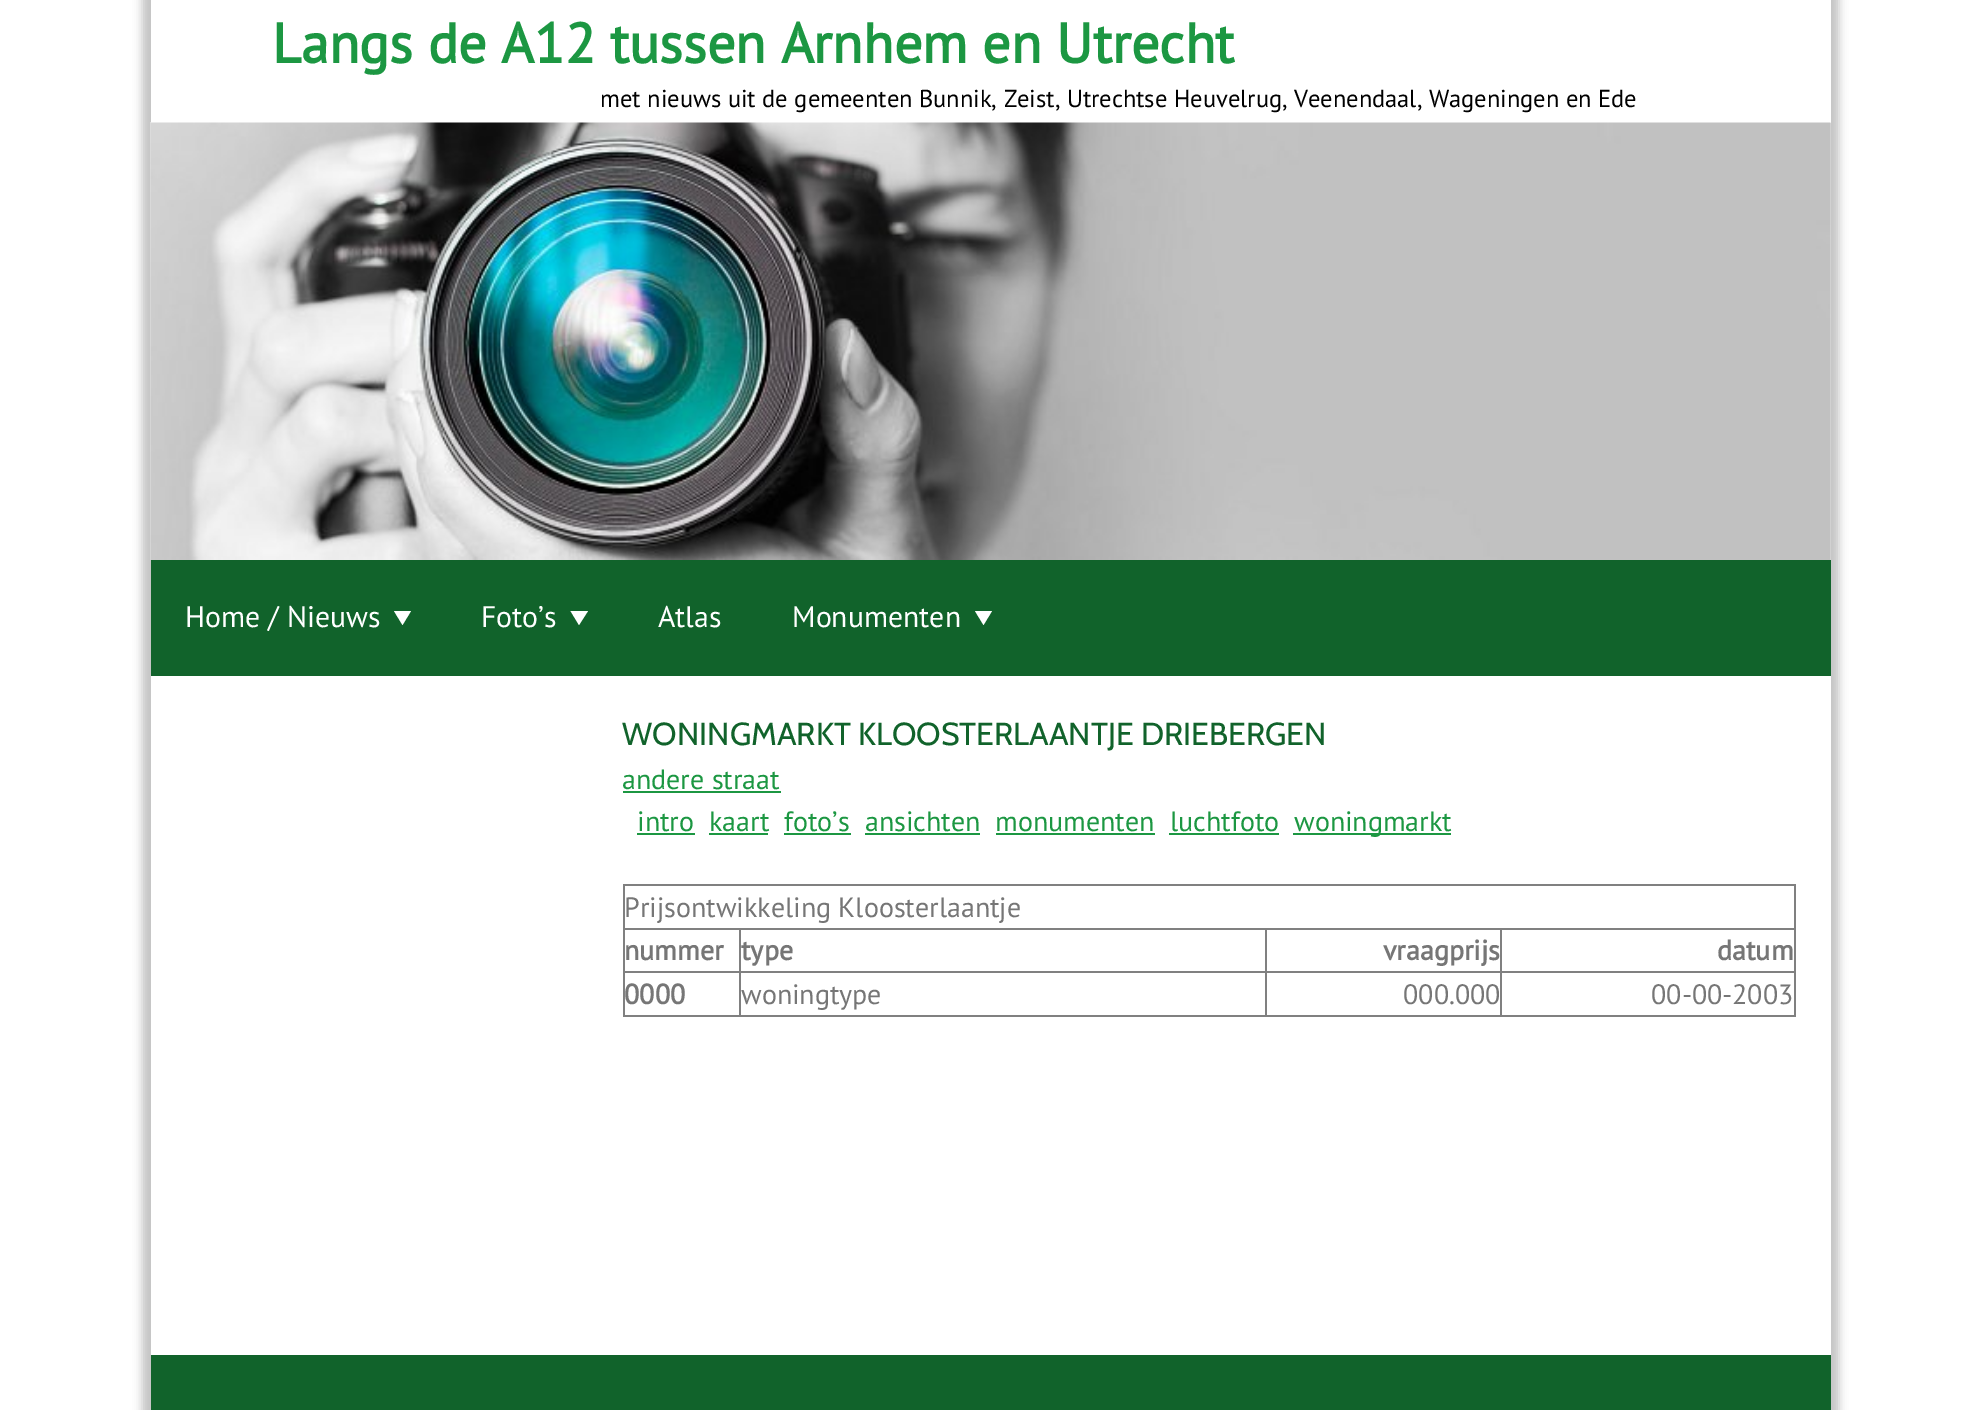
%!PS
<< /PageSize [1978 1410] /PageUsesTransparency true >> setpagedevice
/rgb { 3 { 255 div 3 1 roll } repeat setrgbcolor } def
/font { [ exch dup neg 0 0 3 -1 roll 0 0 ] selectfont } def
/alpha { dup .setfillconstantalpha .setstrokeconstantalpha } def
/roundrect { 5 dict begin { /r /h /w /y /x } { exch def } forall
  x r add y moveto x w add y 2 copy h add r arct x w add y h add x 1 index r arct
  x y h add x y r arct x y 2 copy exch w add exch r arct closepath end } def
/shadow { 12 dict begin { /a /b /q /h /w /y /x } { exch def } forall gsave /was 0 def
  9 -2 -9 { dup b mul 4 div /e exch def 1 sub .425 mul 2.718 exch exp 1 add a .99 .min exch div /now exch def
    1 1 now sub 1 was sub div sub alpha /was now def
    w h .min e 2 mul add 0 gt { x e sub y e sub w e 2 mul add h e 2 mul add
      q e add b .6 mul add w h .min 2 div e add .min 0 .max roundrect fill } if } for grestore end } def
/picture { 5 dict begin { /h /w /y /x /name } { exch def } forall
  gsave x y translate w h scale
  w h 8 [w 0 0 h 0 0] name (r) file false 3 colorimage grestore end } def
0 .pushpdf14devicefilter
0 1410 translate 1 -1 scale
4 setmiterlimit
255 255 255 rgb
0 0 1978 1410 rectfill
195 195 195 rgb
142 -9 1697 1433 0 4.5 1 shadow
255 255 255 rgb
151 0 1680 123 rectfill
(img/1.rgb) 150 122 1681 438 picture
17 99 43 rgb
151 560 1680 116 rectfill
255 255 255 rgb
394 611 moveto 411 611 lineto 402.5 625 lineto closepath fill
570.5 611 moveto 588 611 lineto 579 625 lineto closepath fill
975 611 moveto 992 611 lineto 983.5 625 lineto closepath fill
[
  [151 676 1680 679 255 255 255]
  [623 791 158 2 28 151 66]
  [637 833 58 2 28 151 66]
  [709 833 59 2 28 151 66]
  [784 833 67 2 28 151 66]
  [865 833 115 2 28 151 66]
  [996 833 159 2 28 151 66]
  [1169 833 110 2 28 151 66]
  [1293 833 158 2 28 151 66]
  [623 884 1173 2 128 128 128]
  [1794 884 2 133 128 128 128]
  [623 1015 1173 2 128 128 128]
  [623 884 2 133 128 128 128]
  [1500 928 296 2 128 128 128]
  [1500 971 296 2 128 128 128]
  [1500 971 2 46 128 128 128]
  [1265 971 237 2 128 128 128]
  [1500 928 2 45 128 128 128]
  [1265 928 237 2 128 128 128]
  [1265 971 2 46 128 128 128]
  [739 971 528 2 128 128 128]
  [1265 928 2 45 128 128 128]
  [739 928 528 2 128 128 128]
  [739 971 2 46 128 128 128]
  [623 971 117 2 128 128 128]
  [739 928 2 45 128 128 128]
  [623 928 117 2 128 128 128]
  [151 1355 1680 55 17 99 43]
] { aload pop rgb rectfill } forall
/PTSans-Bold 56 font
28 151 66 rgb
272 63 moveto (Langs de A12 tussen Arnhem en Utrecht) show
/PTSans-Regular 24.5 font
0 0 0 rgb
600 107 moveto (met nieuws uit de gemeenten Bunnik, Zeist, Utrechtse Heuvelrug, Veenendaal, Wageningen en Ede) show
/PTSans-Regular 29.75 font
255 255 255 rgb
[
  [(Home / Nieuws) 185 627]
  [(Foto’s) 481 627]
  [(Atlas) 658 627]
  [(Monumenten) 792 627]
] { aload pop moveto show } forall
/Cabin-Regular 31.85 font
17 99 43 rgb
622 745 moveto (WONINGMARKT KLOOSTERLAANTJE DRIEBERGEN) show
/PTSans-Regular 28 font
28 151 66 rgb
[
  [(andere straat) 622 789]
  [(intro) 637 831]
  [(kaart) 709 831]
  [(foto’s) 784 831]
  [(ansichten) 865 831]
  [(monumenten) 995 831]
  [(luchtfoto) 1170 831]
  [(woningmarkt) 1294 831]
] { aload pop moveto show } forall
118 118 118 rgb
624 917 moveto (Prijsontwikkeling Kloosterlaantje) show
/PTSans-Bold 28 font
[
  [(nummer) 624 960]
  [(type) 741 960]
  [(vraagprijs) 1383 960]
  [(datum) 1717 960]
  [(0000) 624 1004]
] { aload pop moveto show } forall
/PTSans-Regular 28 font
[
  [(woningtype) 741 1004]
  [(000.000) 1403 1004]
  [(00-00-2003) 1651 1004]
] { aload pop moveto show } forall
.poppdf14devicefilter showpage
